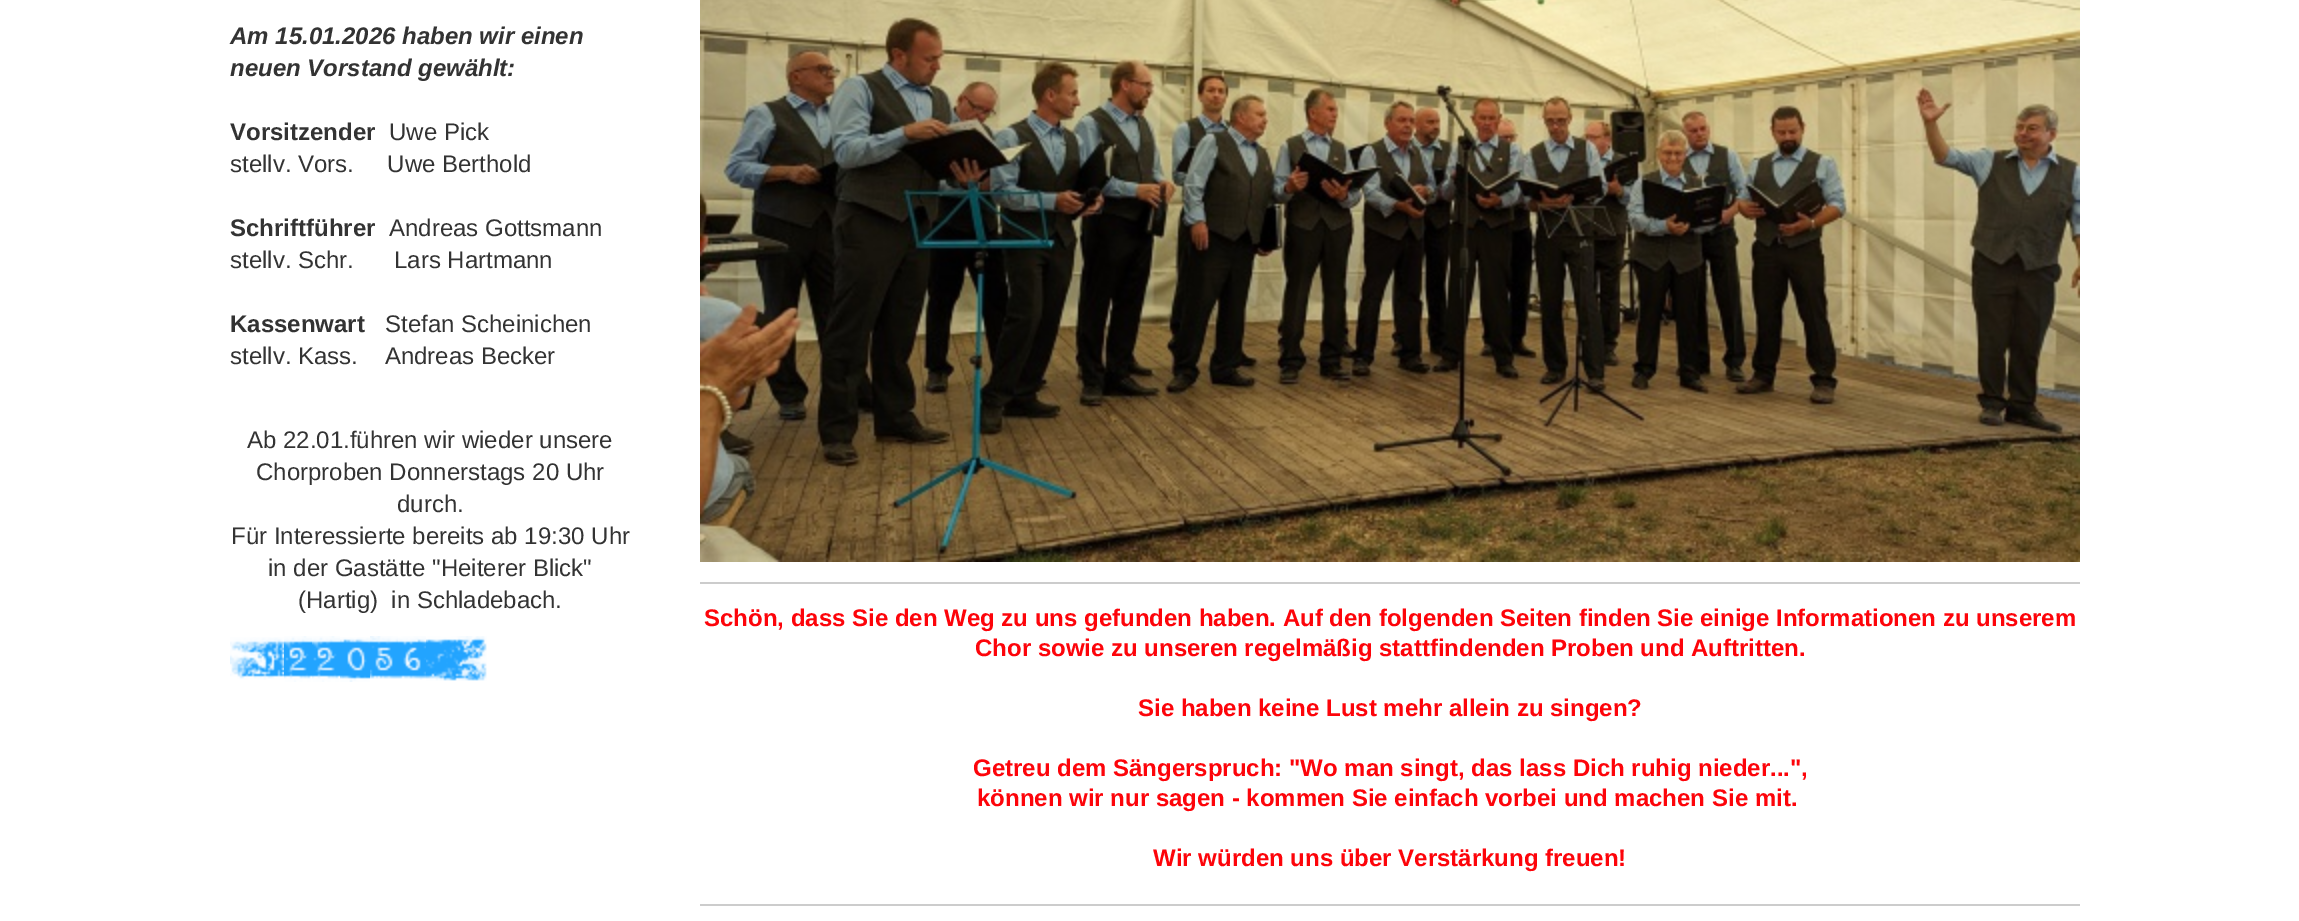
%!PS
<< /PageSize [2299 921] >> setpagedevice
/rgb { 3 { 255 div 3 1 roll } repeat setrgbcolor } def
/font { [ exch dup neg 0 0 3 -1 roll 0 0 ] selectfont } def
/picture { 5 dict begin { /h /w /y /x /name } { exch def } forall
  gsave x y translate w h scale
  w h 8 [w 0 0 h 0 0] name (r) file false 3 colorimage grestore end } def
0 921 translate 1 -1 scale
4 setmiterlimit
255 255 255 rgb
0 0 2299 921 rectfill
(img/1.rgb) 230 637 54 43 picture
(img/2.rgb) 284 636 28 46 picture
(img/2.rgb) 312 636 28 46 picture
(img/3.rgb) 340 637 30 45 picture
(img/4.rgb) 370 636 28 43 picture
(img/5.rgb) 398 636 28 44 picture
(img/6.rgb) 426 636 61 45 picture
204 204 204 rgb
700 582 1380 2 rectfill
(img/7.rgb) 700 0 1380 562 picture
700 904 1380 2 rectfill
/LiberationSans-BoldItalic 24 font
51 51 51 rgb
230 44 moveto (Am 15.01.2026 haben wir einen) show
230 76 moveto (neuen Vorstand gewählt:) show
/LiberationSans-Bold 24 font
230 140 moveto (Vorsitzender) show
/LiberationSans-Regular 24 font
389 140 moveto (Uwe Pick) show
230 172 moveto (stellv. Vors.     Uwe Berthold) show
/LiberationSans-Bold 24 font
230 236 moveto (Schriftführer) show
/LiberationSans-Regular 24 font
389 236 moveto (Andreas Gottsmann) show
230 268 moveto (stellv. Schr.      Lars Hartmann) show
/LiberationSans-Bold 24 font
230 332 moveto (Kassenwart) show
/LiberationSans-Regular 24 font
[
  [(Stefan Scheinichen) 385 332]
  [(stellv. Kass.    Andreas Becker) 230 364]
  [(Ab 22.01.führen wir wieder unsere) 247 448]
  [(Chorproben Donnerstags 20 Uhr) 256 480]
  [(durch.) 397 512]
  [(Für Interessierte bereits ab 19:30 Uhr) 231 544]
  [(in der Gastätte "Heiterer Blick") 268 576]
  [(\(Hartig\)  in Schladebach.) 298 608]
] { aload pop moveto show } forall
/LiberationSans-Bold 24 font
253 4 10 rgb
[
  [(Schön, dass Sie den Weg zu uns gefunden haben. Auf den folgenden Seiten finden Sie einige Informationen zu unserem) 704 626]
  [(Chor sowie zu unseren regelmäßig stattfindenden Proben und Auftritten.) 975 656]
  [(Sie haben keine Lust mehr allein zu singen?) 1138 716]
  [(Getreu dem Sängerspruch: "Wo man singt, das lass Dich ruhig nieder...",) 973 776]
  [(können wir nur sagen - kommen Sie einfach vorbei und machen Sie mit.) 977 806]
  [(Wir würden uns über Verstärkung freuen!) 1153 866]
] { aload pop moveto show } forall
showpage
